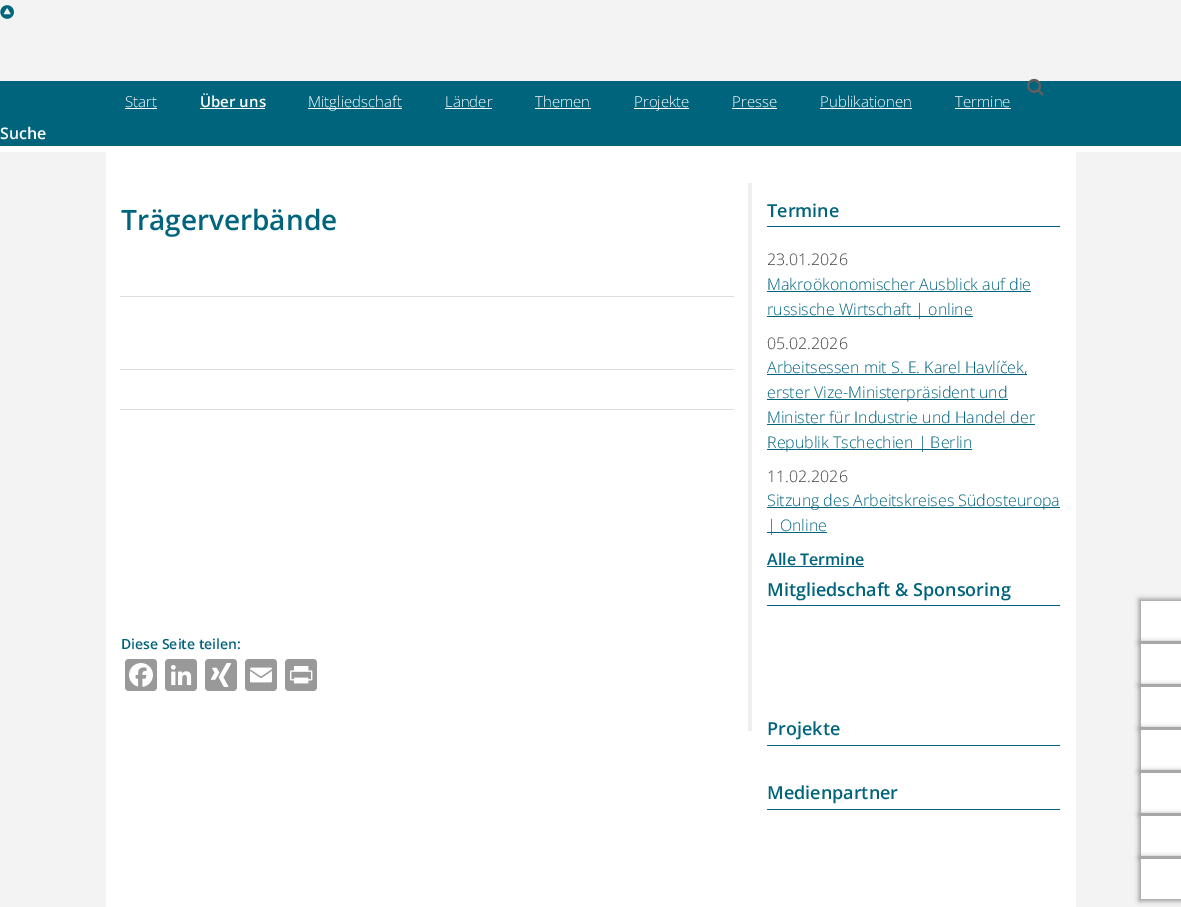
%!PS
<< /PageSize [1181 907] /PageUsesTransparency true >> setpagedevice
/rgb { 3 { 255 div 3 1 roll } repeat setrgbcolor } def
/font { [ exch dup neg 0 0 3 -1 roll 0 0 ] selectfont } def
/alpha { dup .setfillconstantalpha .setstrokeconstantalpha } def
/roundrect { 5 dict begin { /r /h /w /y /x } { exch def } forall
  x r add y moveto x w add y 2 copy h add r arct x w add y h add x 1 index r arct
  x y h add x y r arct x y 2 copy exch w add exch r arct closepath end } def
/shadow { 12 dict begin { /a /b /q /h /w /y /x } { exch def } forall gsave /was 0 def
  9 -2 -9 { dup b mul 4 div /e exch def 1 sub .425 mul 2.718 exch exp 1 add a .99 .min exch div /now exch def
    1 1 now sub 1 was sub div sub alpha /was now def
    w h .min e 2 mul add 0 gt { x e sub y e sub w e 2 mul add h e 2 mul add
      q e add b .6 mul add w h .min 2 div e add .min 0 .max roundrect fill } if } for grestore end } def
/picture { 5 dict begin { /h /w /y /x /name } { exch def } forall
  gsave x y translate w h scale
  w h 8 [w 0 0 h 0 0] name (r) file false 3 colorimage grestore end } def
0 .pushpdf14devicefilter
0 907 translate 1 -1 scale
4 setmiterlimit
243 243 243 rgb
0 0 1181 907 rectfill
(img/1.rgb) 0 5 14 14 picture
[
  [0 81 1181 65 0 100 125]
  [0 146 1181 6 255 255 255]
  [125 108 32 1 255 255 255]
  [200 108 65 1 255 255 255]
  [308 108 94 1 255 255 255]
  [445 108 47 1 255 255 255]
  [535 108 56 1 255 255 255]
  [634 108 55 1 255 255 255]
  [732 108 45 1 255 255 255]
  [820 108 92 1 255 255 255]
  [955 108 56 1 255 255 255]
] { aload pop rgb rectfill } forall
(img/2.rgb) 1027 78 17 18 picture
[
  [106 152 970 755 255 255 255]
  [748 183 4 548 238 238 238]
  [120 296 614 1 221 221 221]
  [120 369 614 1 221 221 221]
  [120 409 614 1 221 221 221]
] { aload pop rgb rectfill } forall
153 153 153 rgb
125 659 32 32 4 roundrect fill
(img/3.rgb) 129 663 24 24 picture
165 659 32 32 4 roundrect fill
(img/4.rgb) 170 665 22 21 picture
205 659 32 32 4 roundrect fill
(img/5.rgb) 210 663 22 24 picture
245 659 32 32 4 roundrect fill
(img/6.rgb) 250 667 22 16 picture
285 659 32 32 4 roundrect fill
(img/7.rgb) 290 666 23 18 picture
[
  [767 226 293 1 0 100 125]
  [767 291 264 1 0 100 125]
  [767 316 206 1 0 100 125]
  [767 374 260 1 0 100 125]
  [767 399 241 1 0 100 125]
  [767 424 268 1 0 100 125]
  [767 449 205 1 0 100 125]
  [767 507 293 1 0 100 125]
  [767 532 60 1 0 100 125]
  [767 566 97 1 0 100 125]
  [767 605 293 1 0 100 125]
  [767 745 293 1 0 100 125]
  [767 809 293 1 0 100 125]
] { aload pop rgb rectfill } forall
153 153 153 rgb
1139 599 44 44 0 2.5 1 shadow
255 255 255 rgb
1141 601 40 40 rectfill
153 153 153 rgb
1139 642 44 44 0 2.5 1 shadow
255 255 255 rgb
1141 644 40 40 rectfill
153 153 153 rgb
1139 685 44 44 0 2.5 1 shadow
255 255 255 rgb
1141 687 40 40 rectfill
153 153 153 rgb
1139 728 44 44 0 2.5 1 shadow
255 255 255 rgb
1141 730 40 40 rectfill
153 153 153 rgb
1139 771 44 44 0 2.5 1 shadow
255 255 255 rgb
1141 773 40 40 rectfill
153 153 153 rgb
1139 814 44 44 0 2.5 1 shadow
255 255 255 rgb
1141 816 40 40 rectfill
153 153 153 rgb
1139 857 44 44 0 2.5 1 shadow
255 255 255 rgb
1141 859 40 40 rectfill
/OpenSans-Light 15 font
125 107 moveto (Start) show
/OpenSans-SemiBold 15 font
200 107 moveto (Über uns) show
/OpenSans-Light 15 font
[
  [(Mitgliedschaft) 308 107]
  [(Länder) 445 107]
  [(Themen) 535 107]
  [(Projekte) 634 107]
  [(Presse) 732 107]
  [(Publikationen) 820 107]
  [(Termine) 955 107]
] { aload pop moveto show } forall
/OpenSans-SemiBold 16 font
0 139 moveto (Suche) show
/OpenSans-SemiBold 28 font
0 100 125 rgb
121 230 moveto (Trägerverbände) show
/OpenSans-SemiBold 14 font
121 649 moveto (Diese Seite teilen:) show
/OpenSans-SemiBold 18 font
767 217 moveto (Termine) show
/OpenSans-Light 16 font
63 63 63 rgb
767 265 moveto (23.01.2026) show
0 100 125 rgb
767 290 moveto (Makroökonomischer Ausblick auf die) show
767 315 moveto (russische Wirtschaft | online) show
63 63 63 rgb
767 349 moveto (05.02.2026) show
0 100 125 rgb
[
  [(Arbeitsessen mit S. E. Karel Havlíček,) 767 373]
  [(erster Vize-Ministerpräsident und) 767 398]
  [(Minister für Industrie und Handel der) 767 423]
  [(Republik Tschechien | Berlin) 767 448]
] { aload pop moveto show } forall
63 63 63 rgb
767 482 moveto (11.02.2026) show
0 100 125 rgb
767 506 moveto (Sitzung des Arbeitskreises Südosteuropa) show
767 531 moveto (| Online) show
/OpenSans-SemiBold 16 font
767 565 moveto (Alle Termine) show
/OpenSans-SemiBold 18 font
[
  [(Mitgliedschaft & Sponsoring) 767 596]
  [(Projekte) 767 735]
  [(Medienpartner) 767 799]
] { aload pop moveto show } forall
.poppdf14devicefilter showpage
